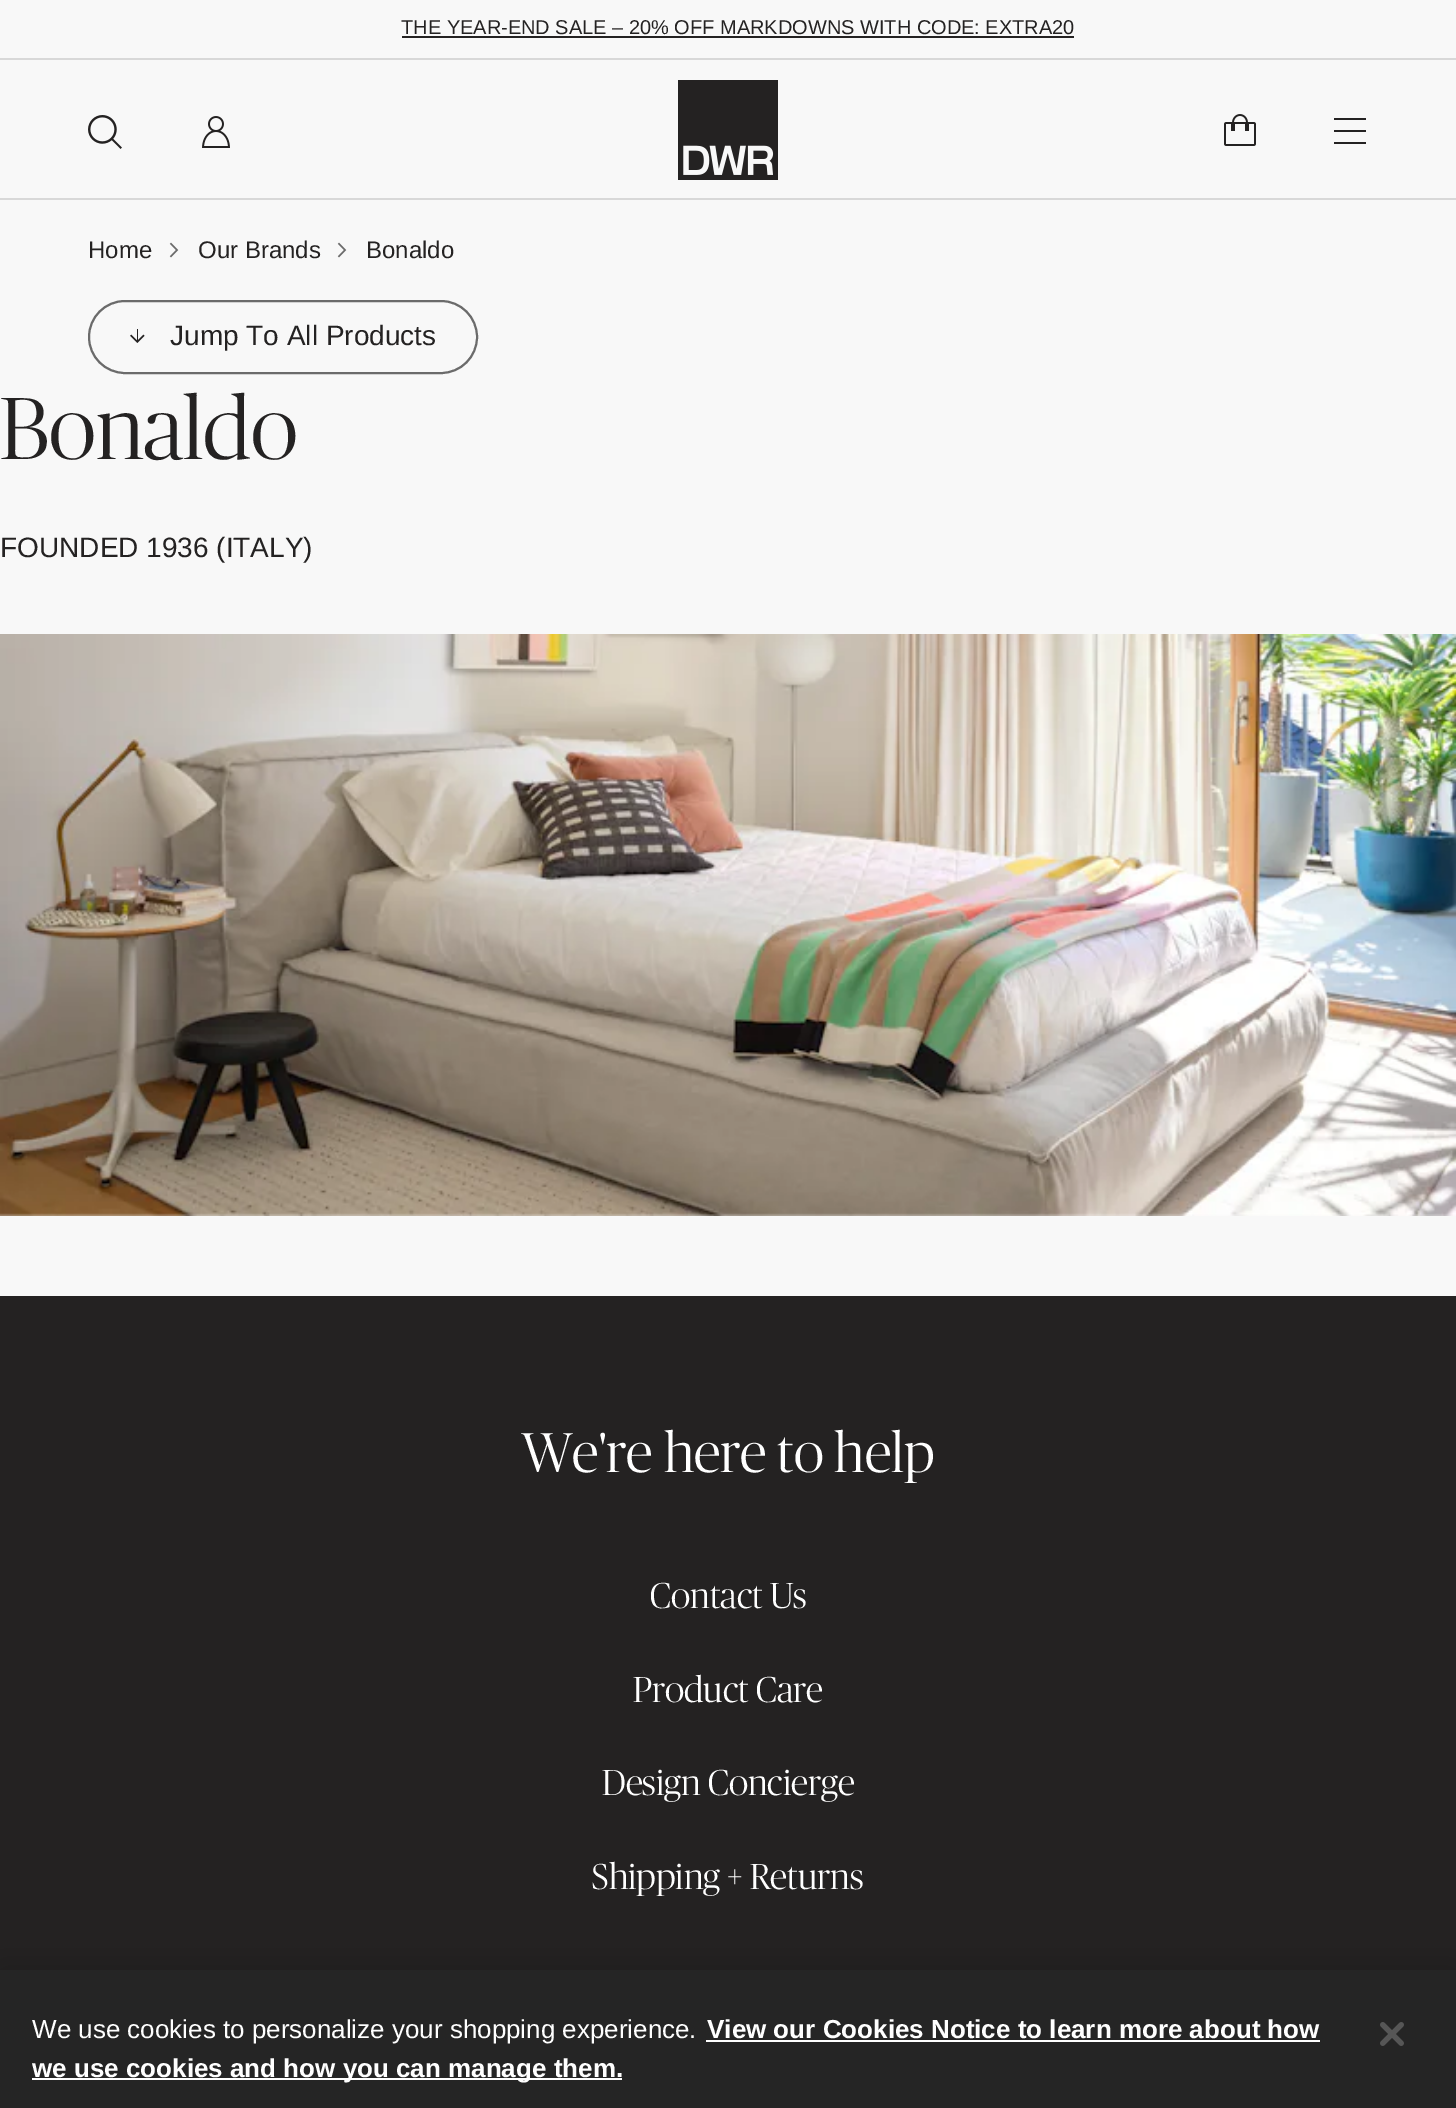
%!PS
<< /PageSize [1456 2108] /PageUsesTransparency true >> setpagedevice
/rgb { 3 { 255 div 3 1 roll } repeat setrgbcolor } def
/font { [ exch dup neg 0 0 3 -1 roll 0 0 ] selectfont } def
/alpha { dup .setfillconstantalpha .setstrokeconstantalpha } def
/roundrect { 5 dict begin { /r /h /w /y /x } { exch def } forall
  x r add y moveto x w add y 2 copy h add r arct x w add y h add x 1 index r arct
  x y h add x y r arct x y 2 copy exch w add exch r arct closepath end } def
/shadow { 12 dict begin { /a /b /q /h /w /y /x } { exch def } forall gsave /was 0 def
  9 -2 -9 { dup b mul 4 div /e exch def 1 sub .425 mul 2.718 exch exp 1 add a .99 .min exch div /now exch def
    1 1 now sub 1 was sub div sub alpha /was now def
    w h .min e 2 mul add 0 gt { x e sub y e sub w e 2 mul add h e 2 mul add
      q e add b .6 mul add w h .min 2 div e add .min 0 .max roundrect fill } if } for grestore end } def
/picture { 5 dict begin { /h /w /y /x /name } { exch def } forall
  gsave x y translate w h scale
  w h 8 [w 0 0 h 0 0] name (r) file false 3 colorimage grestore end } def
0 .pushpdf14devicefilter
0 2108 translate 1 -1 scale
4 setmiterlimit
248 248 248 rgb
0 0 1456 2108 rectfill
[
  [0 58 1456 2 216 216 216]
  [402 36 672 2 36 34 34]
  [0 198 1456 2 216 216 216]
] { aload pop rgb rectfill } forall
(img/1.rgb) 88 115 34 34 picture
(img/2.rgb) 202 116 28 32 picture
(img/3.rgb) 678 80 100 100 picture
(img/4.rgb) 1224 114 32 32 picture
(img/5.rgb) 1334 118 32 26 picture
(img/6.rgb) 169 242 10 16 picture
(img/6.rgb) 337 242 10 16 picture
107 107 107 rgb
2 setlinewidth
89 301 388 72 36 roundrect stroke
(img/7.rgb) 130 329 15 14 picture
(img/8.rgb) 0 634 1456 582 picture
36 34 34 rgb
0 1296 1456 674 rectfill
0 0 0 rgb
0 1970 1456 138 0 18 0.2 shadow
[
  [0 1970 1456 138 37 37 37]
  [706 2040 614 2 255 255 255]
  [32 2078 590 2 255 255 255]
] { aload pop rgb rectfill } forall
(img/9.rgb) 1380 2022 24 24 picture
/LiberationSans-Regular 20 font
36 34 34 rgb
401 34 moveto (THE YEAR-END SALE – 20% OFF MARKDOWNS WITH CODE: EXTRA20) show
/LiberationSans-Regular 24 font
[
  [(Home) 88 258]
  [(Our Brands) 198 258]
  [(Bonaldo) 366 258]
] { aload pop moveto show } forall
/LiberationSans-Regular 28 font
170 345 moveto (Jump To All Products) show
/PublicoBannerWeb-Light 88 font
0 459 moveto (Bonaldo) show
/LiberationSans-Regular 28 font
0 557 moveto (FOUNDED 1936 \(ITALY\)) show
/PublicoBannerWeb-Light 56 font
255 255 255 rgb
522 1472 moveto (We're here to help) show
/PublicoBannerWeb-Light 36 font
[
  [(Contact Us) 650 1608]
  [(Product Care) 633 1702]
  [(Design Concierge) 602 1795]
  [(Shipping + Returns) 592 1889]
] { aload pop moveto show } forall
/LiberationSans-Regular 26 font
32 2038 moveto (We use cookies to personalize your shopping experience.) show
/LiberationSans-Bold 26 font
707 2038 moveto (View our Cookies Notice to learn more about how) show
32 2077 moveto (we use cookies and how you can manage them.) show
.poppdf14devicefilter showpage
